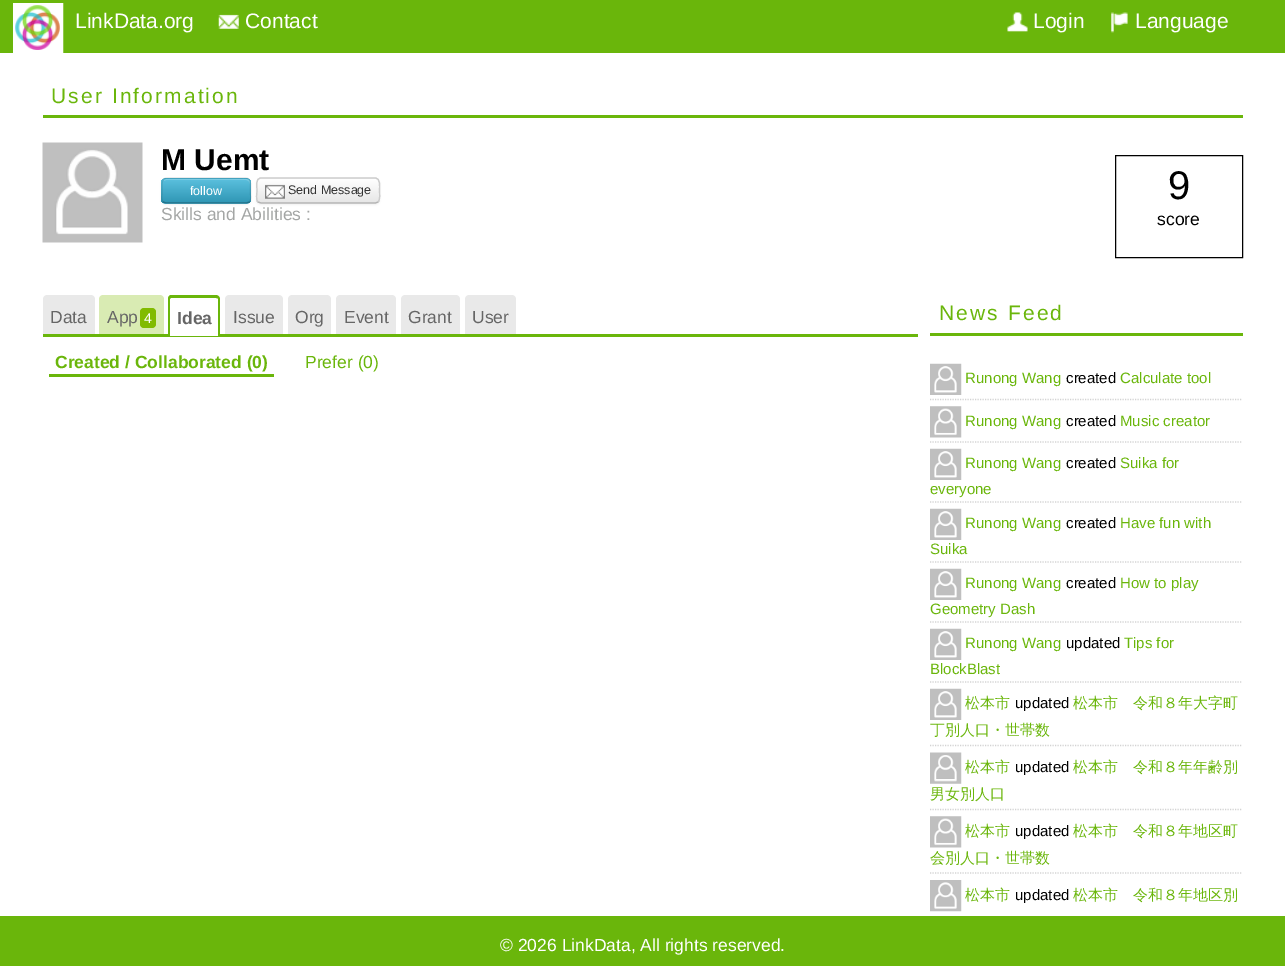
%!PS
<< /PageSize [1285 975] /PageUsesTransparency true >> setpagedevice
/rgb { 3 { 255 div 3 1 roll } repeat setrgbcolor } def
/font { [ exch dup neg 0 0 3 -1 roll 0 0 ] selectfont } def
/alpha { dup .setfillconstantalpha .setstrokeconstantalpha } def
/roundrect { 5 dict begin { /r /h /w /y /x } { exch def } forall
  x r add y moveto x w add y 2 copy h add r arct x w add y h add x 1 index r arct
  x y h add x y r arct x y 2 copy exch w add exch r arct closepath end } def
/shadow { 12 dict begin { /a /b /q /h /w /y /x } { exch def } forall gsave /was 0 def
  9 -2 -9 { dup b mul 4 div /e exch def 1 sub .425 mul 2.718 exch exp 1 add a .99 .min exch div /now exch def
    1 1 now sub 1 was sub div sub alpha /was now def
    w h .min e 2 mul add 0 gt { x e sub y e sub w e 2 mul add h e 2 mul add
      q e add b .6 mul add w h .min 2 div e add .min 0 .max roundrect fill } if } for grestore end } def
/picture { 5 dict begin { /h /w /y /x /name } { exch def } forall
  gsave x y translate w h scale
  w h 8 [w 0 0 h 0 0] name (r) file false 3 colorimage grestore end } def
0 .pushpdf14devicefilter
0 975 translate 1 -1 scale
4 setmiterlimit
255 255 255 rgb
0 0 1285 975 rectfill
106 182 11 rgb
0 0 1285 53 rectfill
255 255 255 rgb
3 setlinewidth
14.5 4.5 47 47 rectstroke
(img/1.rgb) 15 5 45 45 picture
(img/2.rgb) 218 14 21 15 picture
(img/3.rgb) 1007 12 21 20 picture
(img/4.rgb) 1111 12 17 21 picture
106 182 11 rgb
43 115 1200 3 rectfill
(img/5.rgb) 42 142 101 101 picture
0 0 0 rgb
161 179 90 26 5 1 0.05 shadow
73 175 205 rgb
161 178 90 26 5 roundrect fill
gsave
161 178 90 26 5 roundrect clip newpath
gsave 161 179 moveto 251 179 lineto 251 203 lineto 161 203 lineto closepath clip newpath
<< /ShadingType 2 /ColorSpace /DeviceRGB /Coords [206 179 206 203] /Extend [true true] /Function << /FunctionType 2 /Domain [0 1] /C0 [0.357 0.753 0.871] /C1 [0.184 0.588 0.706] /N 1 >> >> shfill grestore
grestore
0.2 alpha
255 255 255 rgb
166 180 moveto 246 180 lineto 248 180 250 182 250 184 curveto 250 183 lineto 250 181 248 179 246 179 curveto 167 179 lineto 166 179 164 180 164 181 curveto closepath fill
0.25 alpha
0 0 0 rgb
1.2 setlinewidth
249.5 202 moveto 246.5 203 lineto 166 203 lineto 163 202 lineto stroke
0.1 alpha
163 202 moveto 161 199.5 162 196 162 193.5 curveto 162 175.5 160.5 178 179.5 178 curveto 233 178 lineto 252 178 250.5 175.5 250.5 193.5 curveto 250.5 196 251.5 199.5 249.5 202 curveto stroke
1 alpha
256 179 124 26 5 1 0.05 shadow
245 245 245 rgb
256 178 124 26 5 roundrect fill
gsave
256 178 124 26 5 roundrect clip newpath
gsave 256 179 moveto 380 179 lineto 380 203 lineto 256 203 lineto closepath clip newpath
<< /ShadingType 2 /ColorSpace /DeviceRGB /Coords [318 179 318 203] /Extend [true true] /Function << /FunctionType 2 /Domain [0 1] /C0 [1 1 1] /C1 [0.902 0.902 0.902] /N 1 >> >> shfill grestore
grestore
179 179 179 rgb
378 202 moveto 375.5 203 lineto 280 203 lineto 261 203 lineto 258 202 lineto stroke
204 204 204 rgb
258 202 moveto 255.5 199 257 194 257 190.5 curveto 257 187 255 178 261 178 curveto 375 178 lineto 381 178 379.5 187 379.5 190.5 curveto 379.5 194 380.5 199 378 202 curveto stroke
(img/6.rgb) 265 184 20 15 picture
0 0 0 rgb
1 setlinewidth
1115.5 155.5 127 102 rectstroke
106 182 11 rgb
43 334 875 3 rectfill
233 233 233 rgb
47 295 moveto 91 295 lineto 93 295 95 297 95 299 curveto 95 334 lineto 43 334 lineto 43 299 lineto 43 297 45 295 47 295 curveto closepath fill
217 235 179 rgb
103 295 moveto 160 295 lineto 162 295 164 297 164 299 curveto 164 334 lineto 99 334 lineto 99 299 lineto 99 297 101 295 103 295 curveto closepath fill
129 187 0 rgb
140 308 16 20 4 roundrect fill
255 255 255 rgb
172 295 moveto 216 295 lineto 218 295 220 297 220 299 curveto 220 336 lineto 168 336 lineto 168 299 lineto 168 297 170 295 172 295 curveto closepath fill
106 182 11 rgb
171 295 moveto 216 295 lineto 218 295 220 297 220 299 curveto 220 336 lineto 168 336 lineto 168 299 lineto 168 297 169 295 171 295 curveto closepath 171 298 moveto 216 298 lineto 217 298 218 298 218 299 curveto 218 336 lineto 170 336 lineto 170 299 lineto 170 298 171 298 171 298 curveto closepath eofill
233 233 233 rgb
229 295 moveto 279 295 lineto 281 295 283 297 283 299 curveto 283 334 lineto 225 334 lineto 225 299 lineto 225 297 227 295 229 295 curveto closepath fill
292 295 moveto 327 295 lineto 329 295 331 297 331 299 curveto 331 334 lineto 288 334 lineto 288 299 lineto 288 297 290 295 292 295 curveto closepath fill
340 295 moveto 392 295 lineto 394 295 396 297 396 299 curveto 396 334 lineto 336 334 lineto 336 299 lineto 336 297 338 295 340 295 curveto closepath fill
405 295 moveto 456 295 lineto 458 295 460 297 460 299 curveto 460 334 lineto 401 334 lineto 401 299 lineto 401 297 403 295 405 295 curveto closepath fill
469 295 moveto 512 295 lineto 514 295 516 297 516 299 curveto 516 334 lineto 465 334 lineto 465 299 lineto 465 297 467 295 469 295 curveto closepath fill
106 182 11 rgb
49 374 225 3 rectfill
930 333 313 3 rectfill
211 211 211 rgb
1.2 setlinewidth
[1.25 1.25] 0 setdash
930 399.5 moveto 1242.5 399.5 lineto stroke
(img/7.rgb) 930 363 32 32 picture
930 442 moveto 1242.5 442 lineto stroke
(img/8.rgb) 930 406 32 32 picture
930 502 moveto 1242.5 502 lineto stroke
(img/7.rgb) 930 448 32 32 picture
930 562 moveto 1242.5 562 lineto stroke
(img/7.rgb) 930 508 32 32 picture
930 622 moveto 1242.5 622 lineto stroke
(img/7.rgb) 930 568 32 32 picture
930 682 moveto 1242.5 682 lineto stroke
(img/7.rgb) 930 628 32 32 picture
930 745.5 moveto 1242.5 745.5 lineto stroke
(img/7.rgb) 930 688 32 32 picture
930 809.5 moveto 1242.5 809.5 lineto stroke
(img/9.rgb) 930 752 32 32 picture
930 873 moveto 1242.5 873 lineto stroke
(img/8.rgb) 930 816 32 32 picture
(img/10.rgb) 930 880 32 32 picture
106 182 11 rgb
0 916 1285 50 rectfill
/LiberationSans-Regular 21 font
255 255 255 rgb
[
  [(LinkData.org) 75 28]
  [(Contact) 245 28]
  [(Login) 1033 28]
  [(Language) 1135 28]
] { aload pop moveto show } forall
106 182 11 rgb
51 103 moveto 2.1 0 (User Information) ashow
/LiberationSans-Bold 30 font
0 0 0 rgb
161 170 moveto (M Uemt) show
/LiberationSans-Regular 12.5 font
255 255 255 rgb
190 195 moveto (follow) show
51 51 51 rgb
288 194 moveto (Send Message) show
/LiberationSans-Regular 17.5 font
164 166 165 rgb
161 220 moveto (Skills and Abilities :) show
/LiberationSans-Regular 40 font
0 0 0 rgb
1168 199 moveto (9) show
/LiberationSans-Regular 17.5 font
1157 225 moveto (score) show
102 102 102 rgb
50 323 moveto (Data) show
107 323 moveto (App) show
/LiberationSans-Regular 14 font
255 255 255 rgb
144 323 moveto (4) show
/LiberationSans-Bold 17.5 font
102 102 102 rgb
177 324 moveto (Idea) show
/LiberationSans-Regular 17.5 font
[
  [(Issue) 233 323]
  [(Org) 295 323]
  [(Event) 344 323]
  [(Grant) 408 323]
  [(User) 472 323]
] { aload pop moveto show } forall
/LiberationSans-Bold 17.5 font
106 182 11 rgb
55 368 moveto (Created / Collaborated \(0\)) show
/LiberationSans-Regular 17.5 font
305 368 moveto (Prefer \(0\)) show
/LiberationSans-Regular 21 font
939 320 moveto 2.1 0 (News Feed) ashow
/LiberationSans-Regular 15 font
965 383 moveto (Runong Wang) show
0 0 0 rgb
1066 383 moveto (created) show
106 182 11 rgb
1120 383 moveto (Calculate tool) show
965 426 moveto (Runong Wang) show
0 0 0 rgb
1066 426 moveto (created) show
106 182 11 rgb
1120 426 moveto (Music creator) show
965 468 moveto (Runong Wang) show
0 0 0 rgb
1066 468 moveto (created) show
106 182 11 rgb
[
  [(Suika for) 1120 468]
  [(everyone) 930 494]
  [(Runong Wang) 965 528]
] { aload pop moveto show } forall
0 0 0 rgb
1066 528 moveto (created) show
106 182 11 rgb
[
  [(Have fun with) 1120 528]
  [(Suika) 930 554]
  [(Runong Wang) 965 588]
] { aload pop moveto show } forall
0 0 0 rgb
1066 588 moveto (created) show
106 182 11 rgb
[
  [(How to play) 1120 588]
  [(Geometry Dash) 930 614]
  [(Runong Wang) 965 648]
] { aload pop moveto show } forall
0 0 0 rgb
1066 648 moveto (updated) show
106 182 11 rgb
1124 648 moveto (Tips for) show
930 674 moveto (BlockBlast) show
/WenQuanYiZenHei-Medium 15 font
965 708 moveto (松本市) show
/LiberationSans-Regular 15 font
0 0 0 rgb
1015 708 moveto (updated) show
/WenQuanYiZenHei-Medium 15 font
106 182 11 rgb
[
  [(松本市　令和８年大字町) 1073 708]
  [(丁別人口・世帯数) 930 735]
  [(松本市) 965 772]
] { aload pop moveto show } forall
/LiberationSans-Regular 15 font
0 0 0 rgb
1015 772 moveto (updated) show
/WenQuanYiZenHei-Medium 15 font
106 182 11 rgb
[
  [(松本市　令和８年年齢別) 1073 772]
  [(男女別人口) 930 799]
  [(松本市) 965 836]
] { aload pop moveto show } forall
/LiberationSans-Regular 15 font
0 0 0 rgb
1015 836 moveto (updated) show
/WenQuanYiZenHei-Medium 15 font
106 182 11 rgb
[
  [(松本市　令和８年地区町) 1073 836]
  [(会別人口・世帯数) 930 863]
  [(松本市) 965 900]
] { aload pop moveto show } forall
/LiberationSans-Regular 15 font
0 0 0 rgb
1015 900 moveto (updated) show
/WenQuanYiZenHei-Medium 15 font
106 182 11 rgb
1073 900 moveto (松本市　令和８年地区別) show
/LiberationSans-Regular 17.5 font
255 255 255 rgb
500 951 moveto (© 2026 LinkData, All rights reserved.) show
.poppdf14devicefilter showpage
